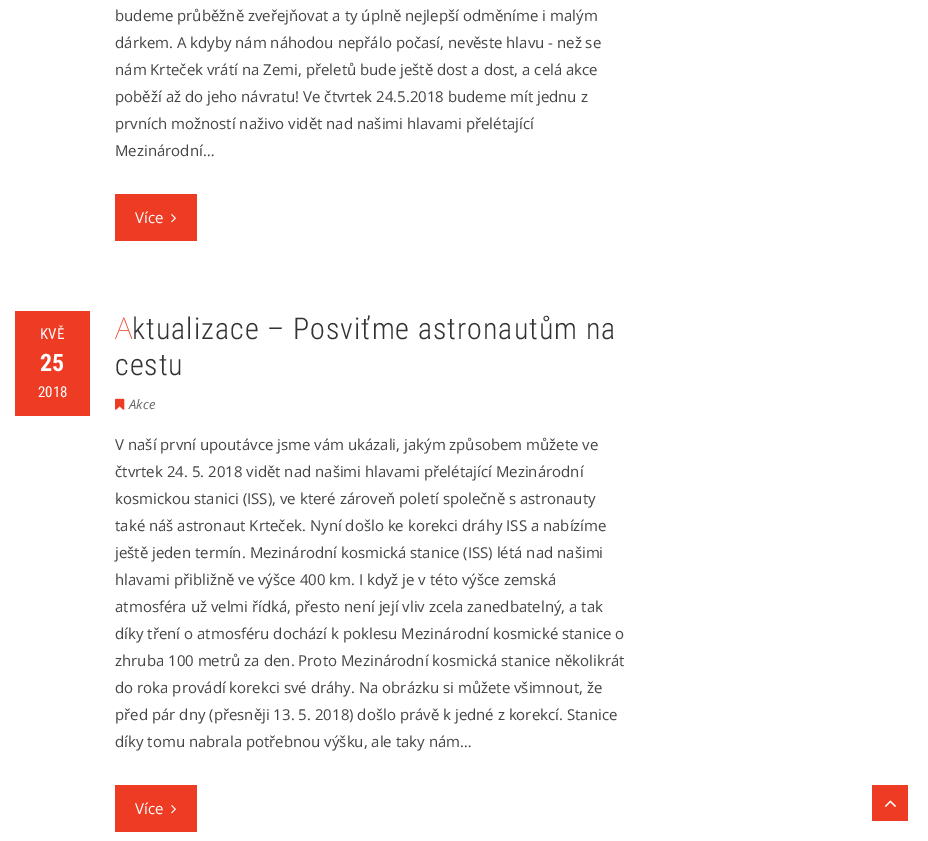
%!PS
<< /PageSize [928 841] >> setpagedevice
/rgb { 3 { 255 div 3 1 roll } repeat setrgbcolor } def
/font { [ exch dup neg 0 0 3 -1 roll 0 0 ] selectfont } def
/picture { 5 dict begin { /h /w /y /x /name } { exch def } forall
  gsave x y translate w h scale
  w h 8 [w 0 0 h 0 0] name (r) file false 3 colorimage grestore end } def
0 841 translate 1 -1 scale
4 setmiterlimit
255 255 255 rgb
0 0 928 841 rectfill
238 59 36 rgb
115 194 82 47 rectfill
(img/1.rgb) 171 214 5 9 picture
15 311 75 105 rectfill
(img/2.rgb) 115 398 10 12 picture
115 785 82 47 rectfill
(img/1.rgb) 171 805 5 9 picture
872 785 36 36 rectfill
(img/3.rgb) 884 800 12 7 picture
/OpenSans-Regular 15 font
68 68 68 rgb
[
  [(budeme průběžně zveřejňovat a ty úplně nejlepší odměníme i malým) 115 21]
  [(dárkem. A kdyby nám náhodou nepřálo počasí, nevěste hlavu - než se) 115 48]
  [(nám Krteček vrátí na Zemi, přeletů bude ještě dost a dost, a celá akce) 115 75]
  [(poběží až do jeho návratu! Ve čtvrtek 24.5.2018 budeme mít jednu z) 115 102]
  [(prvních možností naživo vidět nad našimi hlavami přelétající) 115 129]
  [(Mezinárodní…) 115 156]
] { aload pop moveto show } forall
255 255 255 rgb
135 223 moveto (Více) show
/RobotoCondensed-Regular 15 font
40 339 moveto (KVĚ) show
/RobotoCondensed-Bold 24 font
40 371 moveto (25) show
/RobotoCondensed-Regular 15 font
38 397 moveto (2018) show
/NotoSans-Thin 30 font
238 59 36 rgb
115 339 moveto 1 0 (A) ashow
/RobotoCondensed-Light 30 font
51 51 51 rgb
132 339 moveto 1 0 (ktualizace – Posviťme astronautům na) ashow
115 375 moveto 1 0 (cestu) ashow
/OpenSans-Italic 13 font
102 102 102 rgb
129 409 moveto (Akce) show
/OpenSans-Regular 15 font
68 68 68 rgb
[
  [(V naší první upoutávce jsme vám ukázali, jakým způsobem můžete ve) 115 450]
  [(čtvrtek 24. 5. 2018 vidět nad našimi hlavami přelétající Mezinárodní) 115 477]
  [(kosmickou stanici \(ISS\), ve které zároveň poletí společně s astronauty) 115 504]
  [(také náš astronaut Krteček. Nyní došlo ke korekci dráhy ISS a nabízíme) 115 531]
  [(ještě jeden termín. Mezinárodní kosmická stanice \(ISS\) létá nad našimi) 115 558]
  [(hlavami přibližně ve výšce 400 km. I když je v této výšce zemská) 115 585]
  [(atmosféra už velmi řídká, přesto není její vliv zcela zanedbatelný, a tak) 115 612]
  [(díky tření o atmosféru dochází k poklesu Mezinárodní kosmické stanice o) 115 639]
  [(zhruba 100 metrů za den. Proto Mezinárodní kosmická stanice několikrát) 115 666]
  [(do roka provádí korekci své dráhy. Na obrázku si můžete všimnout, že) 115 693]
  [(před pár dny \(přesněji 13. 5. 2018\) došlo právě k jedné z korekcí. Stanice) 115 720]
  [(díky tomu nabrala potřebnou výšku, ale taky nám…) 115 747]
] { aload pop moveto show } forall
255 255 255 rgb
135 814 moveto (Více) show
showpage
